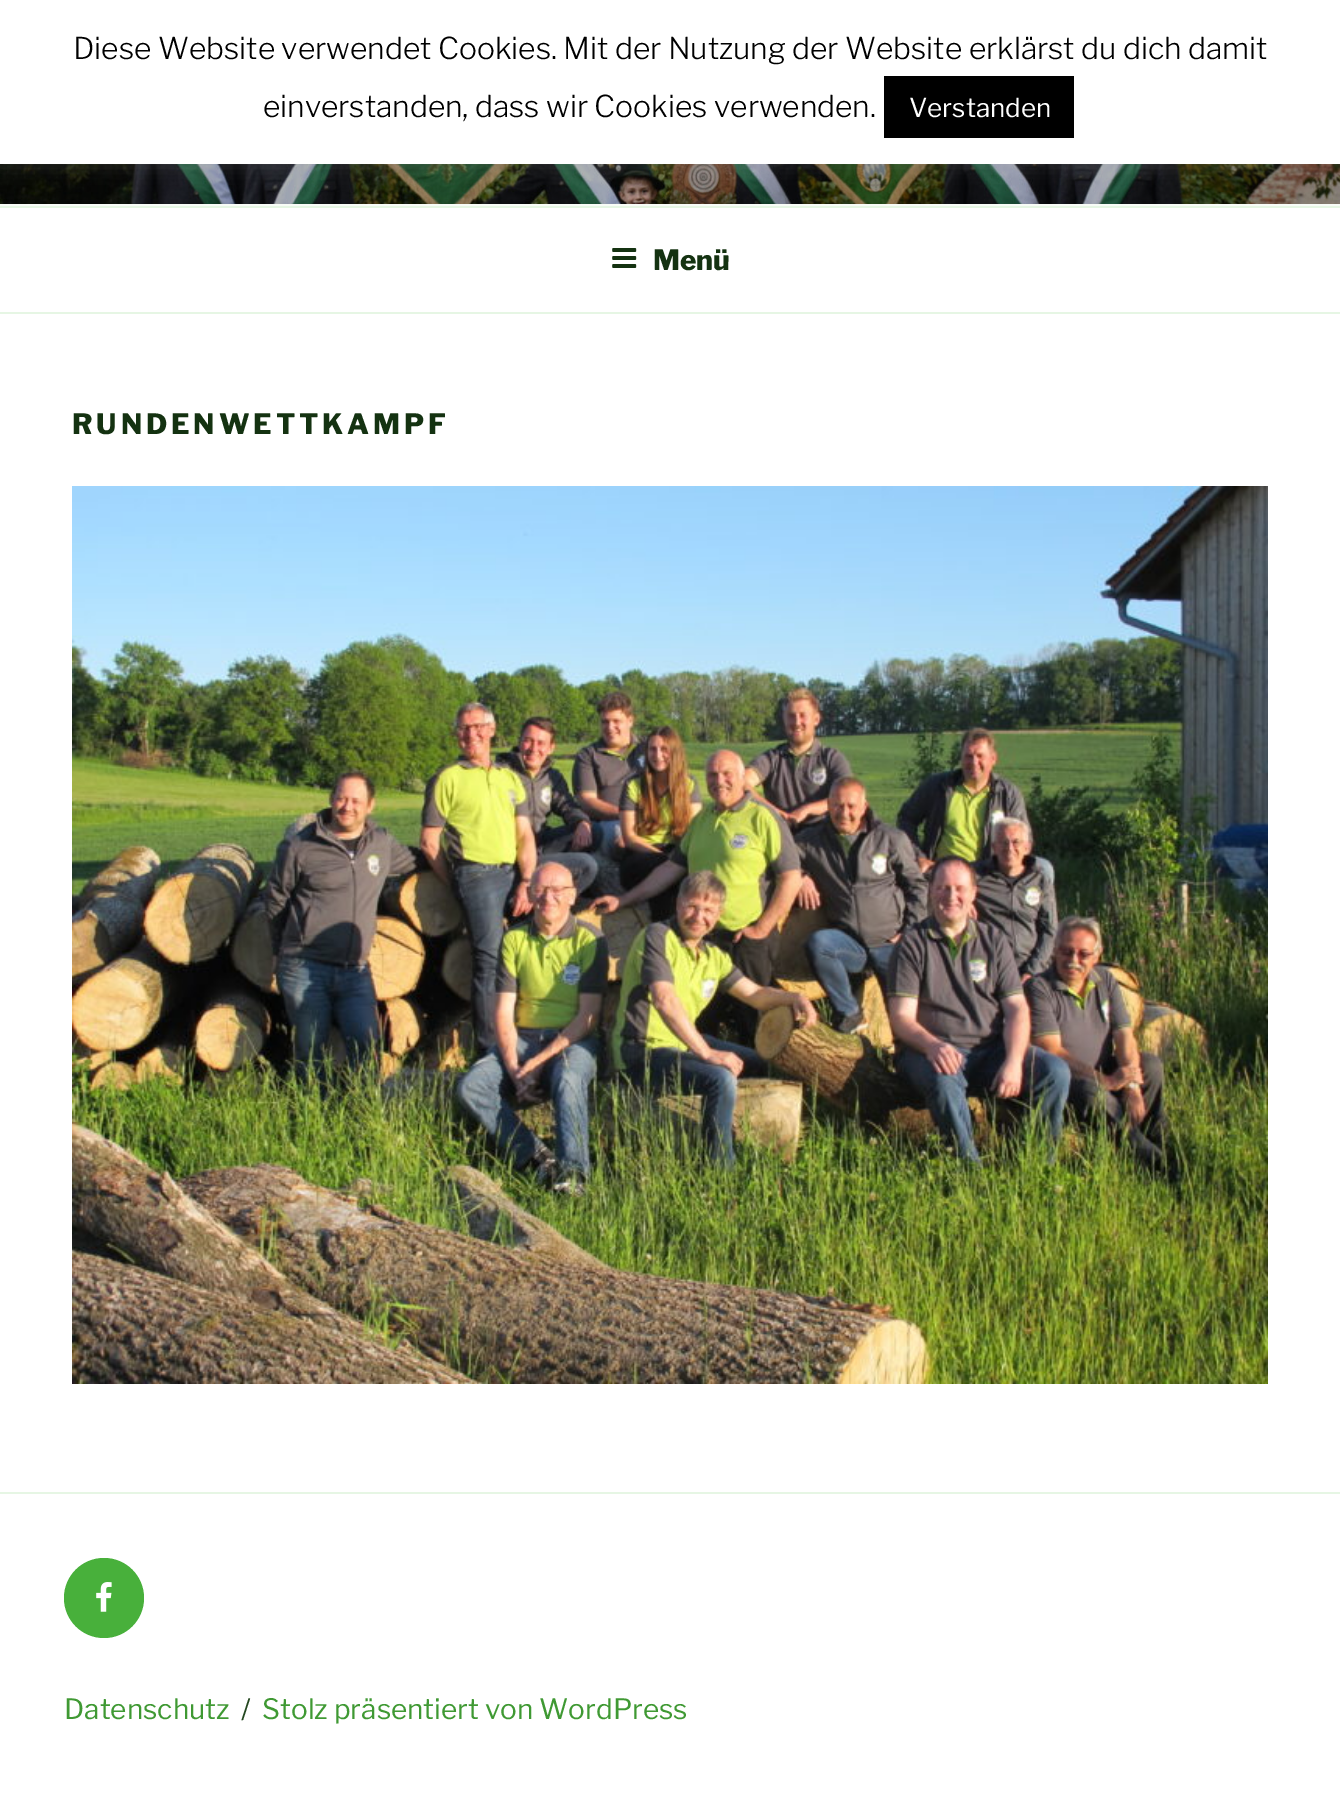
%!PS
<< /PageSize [1340 1807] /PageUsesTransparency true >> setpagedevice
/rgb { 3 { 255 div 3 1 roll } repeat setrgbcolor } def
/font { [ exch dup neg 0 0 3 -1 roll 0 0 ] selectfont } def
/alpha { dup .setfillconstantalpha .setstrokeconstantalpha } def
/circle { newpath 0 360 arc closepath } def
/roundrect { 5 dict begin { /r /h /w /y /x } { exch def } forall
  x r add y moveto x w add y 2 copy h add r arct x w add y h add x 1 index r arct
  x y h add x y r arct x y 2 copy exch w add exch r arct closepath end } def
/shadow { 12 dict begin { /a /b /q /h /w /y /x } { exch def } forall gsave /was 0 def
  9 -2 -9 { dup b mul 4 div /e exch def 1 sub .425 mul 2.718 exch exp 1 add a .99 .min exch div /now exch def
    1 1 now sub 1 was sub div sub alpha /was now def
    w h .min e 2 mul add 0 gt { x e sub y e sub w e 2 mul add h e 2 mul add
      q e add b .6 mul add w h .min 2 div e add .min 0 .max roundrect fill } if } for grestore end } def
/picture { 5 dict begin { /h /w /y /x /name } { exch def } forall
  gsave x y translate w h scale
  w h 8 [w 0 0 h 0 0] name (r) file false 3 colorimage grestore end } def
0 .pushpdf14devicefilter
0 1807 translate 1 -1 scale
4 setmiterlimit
255 255 255 rgb
0 0 1340 1807 rectfill
(img/1.rgb) 0 164 1340 40 picture
172 171 171 rgb
0 -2 1340 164 0 10 0.3 shadow
[
  [0 0 1340 164 255 255 255]
  [884 76 190 62 0 0 0]
  [0 204 1340 2 248 252 247]
  [0 206 1340 2 230 246 228]
  [0 312 1340 2 230 246 228]
] { aload pop rgb rectfill } forall
(img/2.rgb) 612 248 25 20 picture
(img/3.rgb) 72 486 1196 898 picture
0 1492 1340 2 rectfill
72 176 59 rgb
104 1598 40 circle fill
(img/4.rgb) 96 1582 16 30 picture
/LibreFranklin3-Thin 30 font
0 0 0 rgb
73 59 moveto (Diese Website verwendet Cookies. Mit der Nutzung der Website erklärst du dich damit) show
263 117 moveto (einverstanden, dass wir Cookies verwenden.) show
/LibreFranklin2-Thin 26 font
255 255 255 rgb
909 117 moveto (Verstanden) show
/LibreFranklin-Thin 28 font
20 50 17 rgb
653 270 moveto (Menü) show
72 434 moveto 3.9 0 (RUNDENWETTKAMPF) ashow
/LibreFranklin2-Thin 28 font
63 153 51 rgb
64 1719 moveto (Datenschutz) show
35 71 31 rgb
241 1719 moveto (/) show
63 153 51 rgb
262 1719 moveto (Stolz präsentiert von WordPress) show
.poppdf14devicefilter showpage
